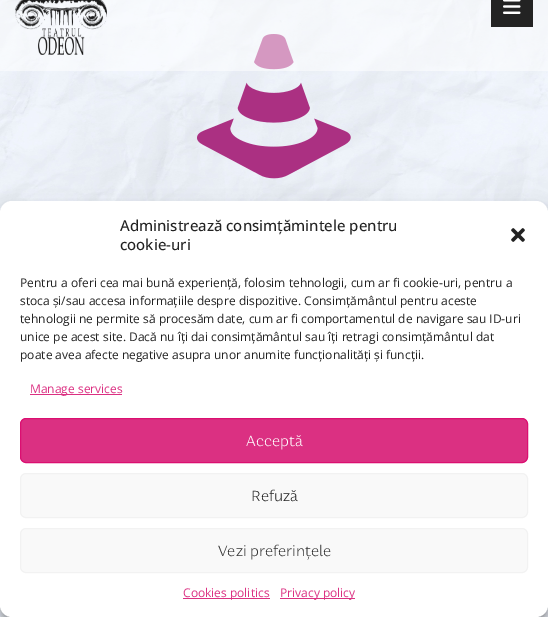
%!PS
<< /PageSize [548 617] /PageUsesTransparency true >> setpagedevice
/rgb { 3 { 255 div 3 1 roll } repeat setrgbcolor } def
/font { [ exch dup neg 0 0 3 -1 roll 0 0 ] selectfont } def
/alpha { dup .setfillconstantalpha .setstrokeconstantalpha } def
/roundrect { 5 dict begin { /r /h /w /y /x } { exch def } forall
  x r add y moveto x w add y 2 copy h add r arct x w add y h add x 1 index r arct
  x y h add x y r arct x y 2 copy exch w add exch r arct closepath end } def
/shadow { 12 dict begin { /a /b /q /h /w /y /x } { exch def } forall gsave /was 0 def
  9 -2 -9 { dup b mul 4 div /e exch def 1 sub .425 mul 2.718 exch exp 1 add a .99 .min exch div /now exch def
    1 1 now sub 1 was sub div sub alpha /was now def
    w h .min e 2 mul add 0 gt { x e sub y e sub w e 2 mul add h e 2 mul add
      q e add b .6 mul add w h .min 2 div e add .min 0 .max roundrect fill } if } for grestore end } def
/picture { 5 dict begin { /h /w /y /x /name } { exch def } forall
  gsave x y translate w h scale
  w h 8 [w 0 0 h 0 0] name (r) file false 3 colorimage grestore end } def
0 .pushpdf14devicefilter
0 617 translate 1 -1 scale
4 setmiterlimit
255 255 255 rgb
0 0 548 617 rectfill
(img/1.rgb) 0 0 548 617 picture
(img/4.rgb) 197 34 154 145 picture
0.5 alpha
0 0 548 71 rectfill
1 alpha
(img/2.rgb) 15 0 92 55 picture
35 35 35 rgb
491 0 42 27 rectfill
(img/3.rgb) 503 0 18 14 picture
0 0 0 rgb
0 207 548 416 12 3 0.23 shadow
0 211 548 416 12 10 0.19 shadow
255 255 255 rgb
0 201 548 416 12 roundrect fill
(img/5.rgb) 511 228 14 14 picture
219 48 130 rgb
30 394 92 1 rectfill
20.5 418.5 507 44 5.5 roundrect gsave fill grestore
219 15 113 rgb
stroke
249 249 249 rgb
20.5 473.5 507 44 5.5 roundrect gsave fill grestore
242 242 242 rgb
stroke
249 249 249 rgb
20.5 528.5 507 44 5.5 roundrect gsave fill grestore
242 242 242 rgb
stroke
219 48 130 rgb
183 598 87 1 rectfill
280 598 75 1 rectfill
/OpenSans-Medium 15 font
34 34 34 rgb
120 231 moveto (Administrează consimțămintele pentru) show
120 250 moveto (cookie-uri) show
/OpenSans-Regular 12 font
[
  [(Pentru a oferi cea mai bună experiență, folosim tehnologii, cum ar fi cookie-uri, pentru a) 20 287]
  [(stoca și/sau accesa informațiile despre dispozitive. Consimțământul pentru aceste) 20 305]
  [(tehnologii ne permite să procesăm date, cum ar fi comportamentul de navigare sau ID-uri) 20 323]
  [(unice pe acest site. Dacă nu îți dai consimțământul sau îți retragi consimțământul dat) 20 341]
  [(poate avea afecte negative asupra unor anumite funcționalități și funcții.) 20 359]
] { aload pop moveto show } forall
219 48 130 rgb
30 393 moveto (Manage services) show
/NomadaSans-Light 15 font
255 255 255 rgb
246 446 moveto (Acceptă) show
34 34 34 rgb
251 501 moveto (Refuză) show
51 51 51 rgb
218 556 moveto (Vezi preferințele) show
/OpenSans-Regular 12 font
219 48 130 rgb
183 597 moveto (Cookies politics) show
280 597 moveto (Privacy policy) show
.poppdf14devicefilter showpage
